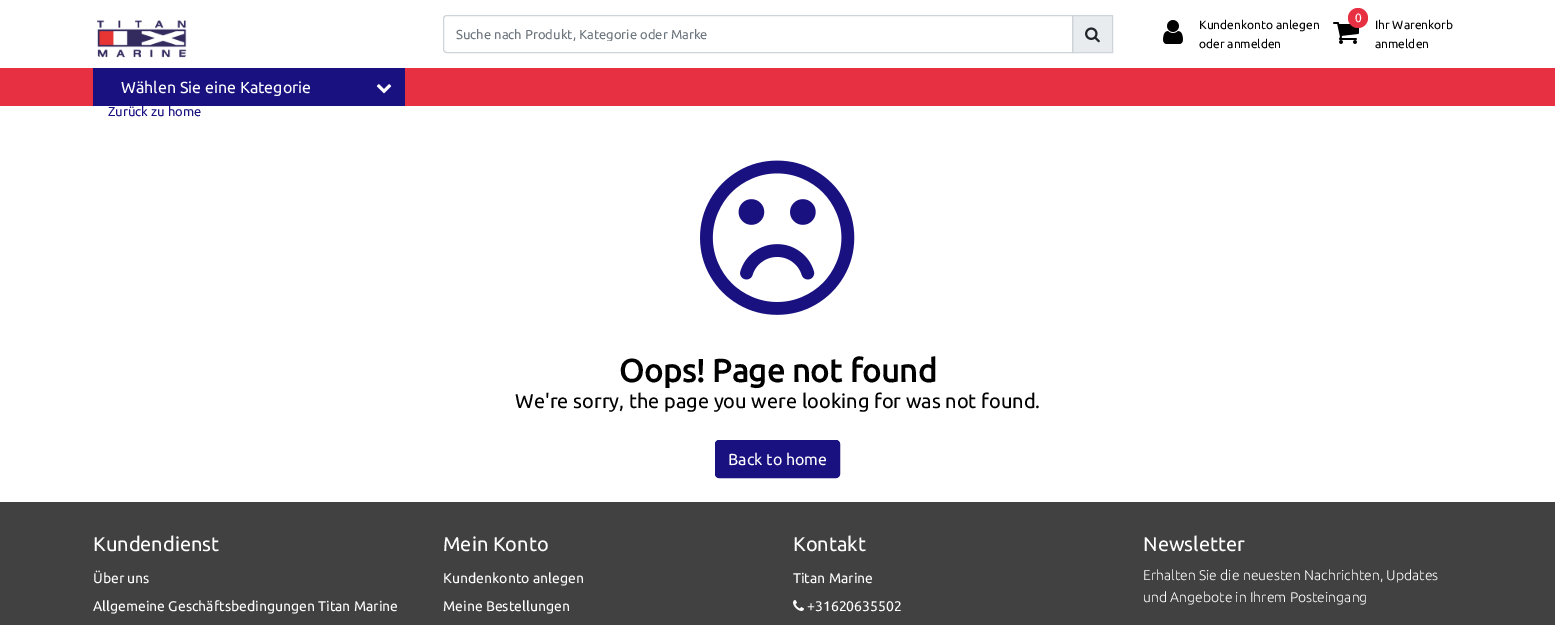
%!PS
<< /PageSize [1555 625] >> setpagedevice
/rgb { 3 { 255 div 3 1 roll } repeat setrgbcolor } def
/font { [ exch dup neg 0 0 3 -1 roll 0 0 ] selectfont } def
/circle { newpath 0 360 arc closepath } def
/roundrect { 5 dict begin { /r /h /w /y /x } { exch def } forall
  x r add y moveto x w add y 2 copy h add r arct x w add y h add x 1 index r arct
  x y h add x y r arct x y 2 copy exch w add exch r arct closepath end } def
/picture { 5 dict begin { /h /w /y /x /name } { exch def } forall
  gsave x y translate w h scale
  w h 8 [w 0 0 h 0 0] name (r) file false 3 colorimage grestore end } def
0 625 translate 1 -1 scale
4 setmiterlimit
255 255 255 rgb
0 0 1555 625 rectfill
(img/1.rgb) 97 20 90 38 picture
233 236 239 rgb
1072.5 15.5 moveto 1112.5 15.5 lineto 1112.5 52.5 lineto 1072.5 52.5 lineto closepath gsave fill grestore
206 212 218 rgb
stroke
447 15.5 moveto 1072.5 15.5 lineto 1072.5 52.5 lineto 447 52.5 lineto 445 52.5 443.5 51 443.5 49 curveto 443.5 19 lineto 443.5 17 445 15.5 447 15.5 curveto closepath stroke
(img/2.rgb) 1085 27 15 16 picture
(img/3.rgb) 1163 20 20 24 picture
(img/4.rgb) 1333 22 26 22 picture
232 48 67 rgb
1358 18 10 circle fill
(img/6.rgb) 700 160 155 155 picture
26 17 129 rgb
715.5 440.5 124 37 3.5 roundrect gsave fill grestore
stroke
65 65 65 rgb
0 502 1555 123 rectfill
(img/7.rgb) 793 600 11 11 picture
gsave
456 27 591 14 rectclip
/Ubuntu-Regular 13 font
108 117 125 rgb
456 39 moveto (Suche nach Produkt, Kategorie oder Marke) show
grestore
/Ubuntu-Regular 12 font
0 0 0 rgb
1199 29 moveto (Kundenkonto anlegen) show
1199 48 moveto (oder anmelden) show
255 255 255 rgb
1355 22 moveto (0) show
0 0 0 rgb
1375 29 moveto (Ihr Warenkorb) show
1375 48 moveto (anmelden) show
/Ubuntu-Regular 13 font
26 17 129 rgb
108 116 moveto (Zurück zu home) show
232 48 67 rgb
0 68 1555 38 rectfill
26 17 129 rgb
93 68 312 38 rectfill
/Ubuntu-Regular 16 font
255 255 255 rgb
121 93 moveto (Wählen Sie eine Kategorie) show
(img/5.rgb) 376 84 16 10 picture
/Ubuntu-Bold 32 font
0 0 0 rgb
619 382 moveto (Oops! Page not found) show
/Ubuntu-Regular 20 font
515 408 moveto (We're sorry, the page you were looking for was not found.) show
/Ubuntu-Regular 16 font
255 255 255 rgb
728 465 moveto (Back to home) show
/Ubuntu-Regular 20 font
93 551 moveto (Kundendienst) show
/Ubuntu-Regular 14 font
93 583 moveto (Über uns) show
93 611 moveto (Allgemeine Geschäftsbedingungen Titan Marine) show
/Ubuntu-Regular 20 font
443 551 moveto (Mein Konto) show
/Ubuntu-Regular 14 font
443 583 moveto (Kundenkonto anlegen) show
443 611 moveto (Meine Bestellungen) show
/Ubuntu-Regular 20 font
793 551 moveto (Kontakt) show
/Ubuntu-Regular 14 font
793 583 moveto (Titan Marine) show
807 611 moveto (+31620635502) show
/Ubuntu-Regular 20 font
1143 551 moveto (Newsletter) show
/Ubuntu-Light 14 font
1143 580 moveto (Erhalten Sie die neuesten Nachrichten, Updates) show
1143 602 moveto (und Angebote in Ihrem Posteingang) show
showpage
